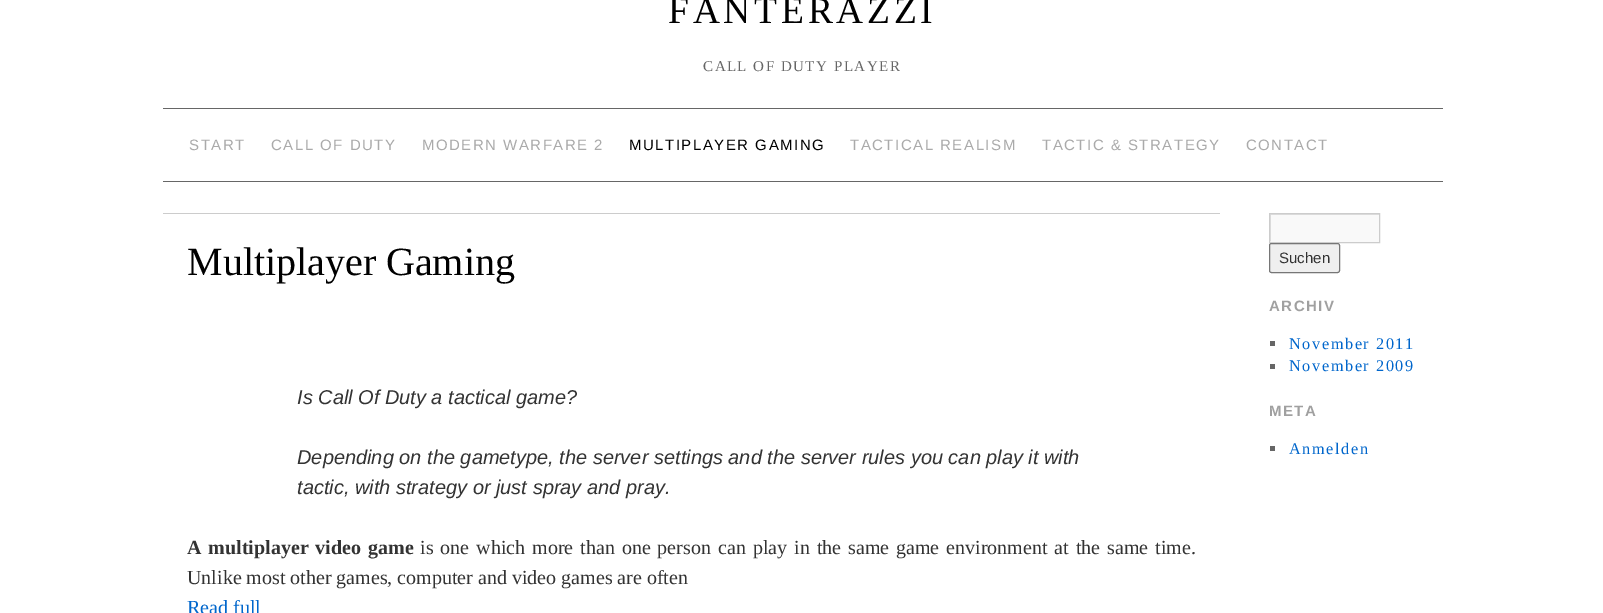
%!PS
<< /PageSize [1603 613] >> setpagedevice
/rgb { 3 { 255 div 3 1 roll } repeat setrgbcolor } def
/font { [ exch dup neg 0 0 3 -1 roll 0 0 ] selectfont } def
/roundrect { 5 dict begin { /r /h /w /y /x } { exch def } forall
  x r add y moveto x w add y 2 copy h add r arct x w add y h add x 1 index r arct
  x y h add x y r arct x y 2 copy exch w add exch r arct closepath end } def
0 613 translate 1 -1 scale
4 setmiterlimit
255 255 255 rgb
0 0 1603 613 rectfill
[
  [163 108 1280 1 102 102 102]
  [163 181 1280 1 102 102 102]
  [163 213 1057 1 204 204 204]
  [1270 215 109 27 249 249 249]
] { aload pop rgb rectfill } forall
gsave
1270 214 109 27 rectclip
224 224 224 rgb
1146 90 moveto 1502 90 lineto 1502 365 lineto 1146 365 lineto closepath 1271 215 moveto 1380 215 lineto 1380 242 lineto 1271 242 lineto closepath eofill
grestore
204 204 204 rgb
1269.5 213.5 110 29 rectstroke
239 239 239 rgb
1269.5 243.5 70 29 2 roundrect gsave fill grestore
118 118 118 rgb
stroke
[
  [1270 341 5 5 102 102 102]
  [1270 364 5 5 102 102 102]
  [1270 446 5 5 102 102 102]
] { aload pop rgb rectfill } forall
/LiberationSerif-Regular 37.5 font
0 0 0 rgb
668 23 moveto 3.75 0 (FANTERAZZI) ashow
/LiberationSerif-Regular 15 font
102 102 102 rgb
703 71 moveto 1.5 0 (CALL OF DUTY PLAYER) ashow
/LiberationSans-Regular 15 font
170 170 170 rgb
189 150 moveto 1.5 0 (START) ashow
271 150 moveto 1.5 0 (CALL OF DUTY) ashow
422 150 moveto 1.5 0 (MODERN WARFARE 2) ashow
0 0 0 rgb
629 150 moveto 1.5 0 (MULTIPLAYER GAMING) ashow
170 170 170 rgb
850 150 moveto 1.5 0 (TACTICAL REALISM) ashow
1042 150 moveto 1.5 0 (TACTIC & STRATEGY) ashow
1246 150 moveto 1.5 0 (CONTACT) ashow
/LiberationSerif-Regular 40 font
0 0 0 rgb
187 275 moveto (Multiplayer Gaming) show
/LiberationSans-Italic 20 font
51 51 51 rgb
[
  [(Is Call Of Duty a tactical game?) 297 404]
  [(Depending on the gametype, the server settings and the server rules you can play it with) 297 464]
  [(tactic, with strategy or just spray and pray.) 297 494]
] { aload pop moveto show } forall
/LiberationSerif-Bold 20 font
187 554 moveto 2 0 32 (A multiplayer video game) widthshow
/LiberationSerif-Regular 20 font
420 554 moveto 2 0 32 (is one which more than one person can play in the same game environment at the same time.) widthshow
187 584 moveto (Unlike most other games, computer and video games are often) show
0 102 204 rgb
187 614 moveto (Read full) show
/LiberationSans-Regular 15 font
51 51 51 rgb
1279 263 moveto (Suchen) show
/LiberationSans-Bold 15 font
160 160 160 rgb
1269 311 moveto 1.5 0 (ARCHIV) ashow
/LiberationSerif-Regular 16.25 font
0 102 204 rgb
1289 349 moveto 1.6 0 (November 2011) ashow
1289 371 moveto 1.6 0 (November 2009) ashow
/LiberationSans-Bold 15 font
160 160 160 rgb
1269 416 moveto 1.5 0 (META) ashow
/LiberationSerif-Regular 16.25 font
0 102 204 rgb
1289 454 moveto 1.6 0 (Anmelden) ashow
showpage
